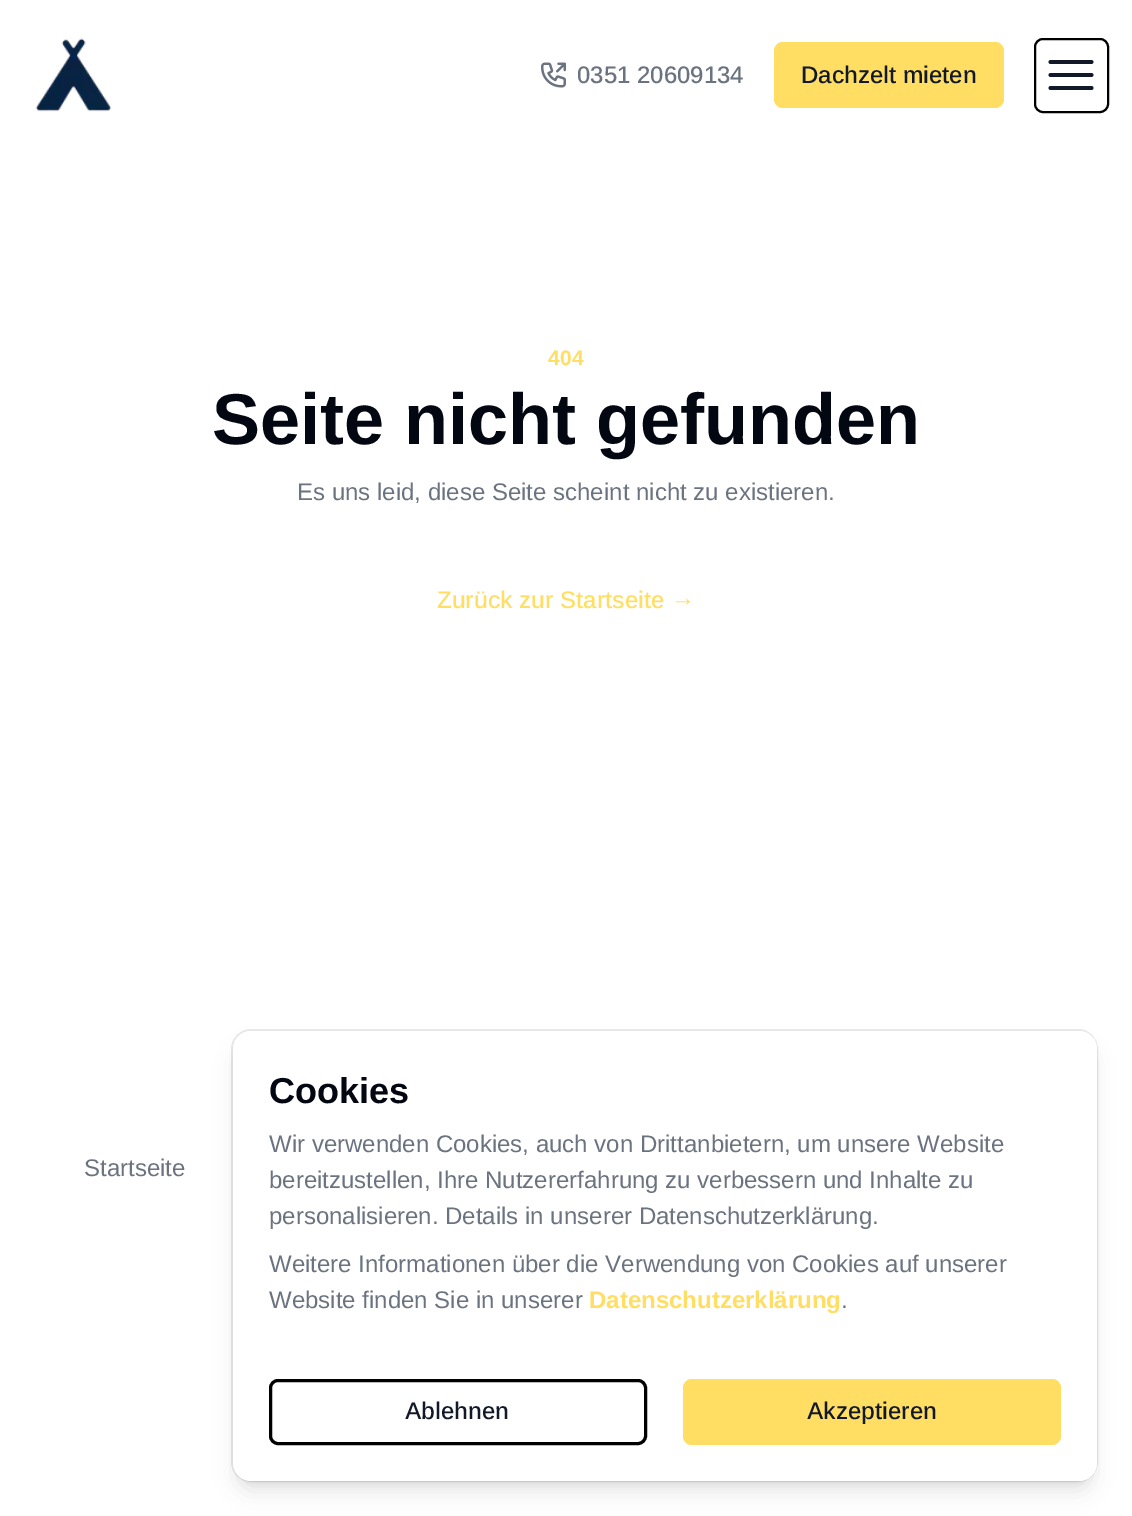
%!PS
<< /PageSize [1132 1516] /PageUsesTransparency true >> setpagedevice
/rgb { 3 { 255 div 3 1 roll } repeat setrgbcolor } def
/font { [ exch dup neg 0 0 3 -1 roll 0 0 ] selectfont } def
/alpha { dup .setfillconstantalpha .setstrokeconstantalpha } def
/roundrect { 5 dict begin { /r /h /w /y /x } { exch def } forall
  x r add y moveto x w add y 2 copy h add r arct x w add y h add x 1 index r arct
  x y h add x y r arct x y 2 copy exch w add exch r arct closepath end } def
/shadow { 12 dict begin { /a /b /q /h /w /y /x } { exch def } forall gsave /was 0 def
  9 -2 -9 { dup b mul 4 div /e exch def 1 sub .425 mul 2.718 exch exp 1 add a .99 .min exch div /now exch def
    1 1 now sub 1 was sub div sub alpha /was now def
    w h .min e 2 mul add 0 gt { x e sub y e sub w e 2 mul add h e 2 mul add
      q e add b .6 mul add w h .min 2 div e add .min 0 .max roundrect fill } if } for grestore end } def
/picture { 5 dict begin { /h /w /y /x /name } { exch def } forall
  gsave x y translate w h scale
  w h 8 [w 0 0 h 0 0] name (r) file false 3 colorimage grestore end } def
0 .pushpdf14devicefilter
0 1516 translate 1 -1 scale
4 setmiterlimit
255 255 255 rgb
0 0 1132 1516 rectfill
(img/1.rgb) 36 38 75 74 picture
(img/2.rgb) 541 62 25 26 picture
255 222 99 rgb
774 42 230 66 9 roundrect fill
0 0 0 rgb
2 setlinewidth
1035 39 73 73 8 roundrect stroke
17 24 39 rgb
3.8 setlinewidth
1 setlinecap
1 setlinejoin
1050.5 62 moveto 1091.5 62 lineto 1050.5 75 moveto 1091.5 75 lineto 1050.5 88 moveto 1091.5 88 lineto stroke
0 0 0 rgb
239 1043 852 438 12 4.5 0.1 shadow
237 1050 855 441 14 11 0.1 shadow
0.1 alpha
17 24 39 rgb
2 setlinewidth
0 setlinecap
0 setlinejoin
232 1030 865 451 19 roundrect stroke
1 alpha
255 255 255 rgb
233 1031 864 450 18 roundrect fill
0 0 0 rgb
3 setlinewidth
270.5 1380.5 375 63 7.5 roundrect stroke
255 222 99 rgb
683 1379 378 66 9 roundrect fill
/Arimo-Medium 24 font
107 114 128 rgb
577 83 moveto (0351 20609134) show
17 24 39 rgb
801 83 moveto (Dachzelt mieten) show
/Arimo-Bold 21 font
255 222 99 rgb
548 365 moveto 0.5 0 (404) ashow
/Arimo-Bold 72 font
3 7 18 rgb
212 444 moveto (Seite nicht gefunden) show
/Arimo-Regular 24 font
107 114 128 rgb
297 500 moveto (Es uns leid, diese Seite scheint nicht zu existieren.) show
/Arimo-Medium 24 font
255 222 99 rgb
437 608 moveto (Zurück zur Startseite →) show
/Arimo-Regular 24 font
107 114 128 rgb
84 1176 moveto (Startseite) show
/Arimo-Bold 36 font
3 7 18 rgb
269 1103 moveto (Cookies) show
/Arimo-Regular 24 font
107 114 128 rgb
[
  [(Wir verwenden Cookies, auch von Drittanbietern, um unsere Website) 269 1152]
  [(bereitzustellen, Ihre Nutzererfahrung zu verbessern und Inhalte zu) 269 1188]
  [(personalisieren. Details in unserer Datenschutzerklärung.) 269 1224]
  [(Weitere Informationen über die Verwendung von Cookies auf unserer) 269 1272]
  [(Website finden Sie in unserer) 269 1308]
] { aload pop moveto show } forall
/Arimo-Bold 24 font
255 222 99 rgb
589 1308 moveto (Datenschutzerklärung) show
/Arimo-Regular 24 font
107 114 128 rgb
841 1308 moveto (.) show
/Arimo-Medium 24 font
17 24 39 rgb
405 1419 moveto (Ablehnen) show
807 1419 moveto (Akzeptieren) show
.poppdf14devicefilter showpage
